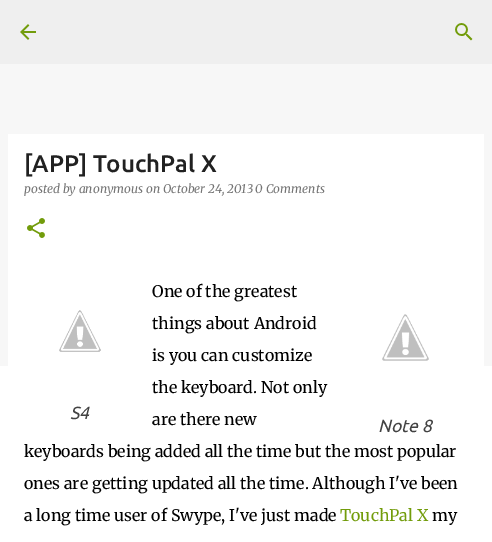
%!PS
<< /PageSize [492 542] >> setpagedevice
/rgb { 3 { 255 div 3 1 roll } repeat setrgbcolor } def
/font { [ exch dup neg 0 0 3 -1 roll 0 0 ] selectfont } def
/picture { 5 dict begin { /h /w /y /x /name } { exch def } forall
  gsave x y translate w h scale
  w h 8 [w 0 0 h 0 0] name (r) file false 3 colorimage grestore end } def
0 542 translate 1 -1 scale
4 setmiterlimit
247 247 247 rgb
0 0 492 542 rectfill
239 239 239 rgb
0 0 492 64 rectfill
(img/1.rgb) 20 24 16 16 picture
(img/2.rgb) 455 23 18 18 picture
255 255 255 rgb
0 366 492 176 rectfill
8 134 476 232 rectfill
(img/3.rgb) 27 218 18 20 picture
(img/4.rgb) 59 310 42 42 picture
(img/5.rgb) 382 314 47 47 picture
/Ubuntu-Medium 24 font
33 33 33 rgb
24 172 moveto ([APP] TouchPal X) show
/Merriweather-Italic 12 font
117 117 117 rgb
24 193 moveto (posted by anonymous on October 24, 2013 0 Comments) show
/Merriweather-Regular 16 font
0 0 0 rgb
[
  [(One of the greatest) 152 297]
  [(things about Android) 152 329]
  [(is you can customize) 152 361]
  [(the keyboard. Not only) 152 393]
] { aload pop moveto show } forall
/Ubuntu-Italic 17.5 font
66 66 66 rgb
70 419 moveto (S4) show
/Merriweather-Regular 16 font
0 0 0 rgb
152 425 moveto (are there new) show
/Ubuntu-Italic 17.5 font
66 66 66 rgb
378 432 moveto (Note 8) show
/Merriweather-Regular 16 font
0 0 0 rgb
[
  [(keyboards being added all the time but the most popular) 24 457]
  [(ones are getting updated all the time. Although I've been) 24 489]
  [(a long time user of Swype, I've just made) 24 521]
] { aload pop moveto show } forall
114 156 11 rgb
340 521 moveto (TouchPal X) show
0 0 0 rgb
432 521 moveto (my) show
showpage
